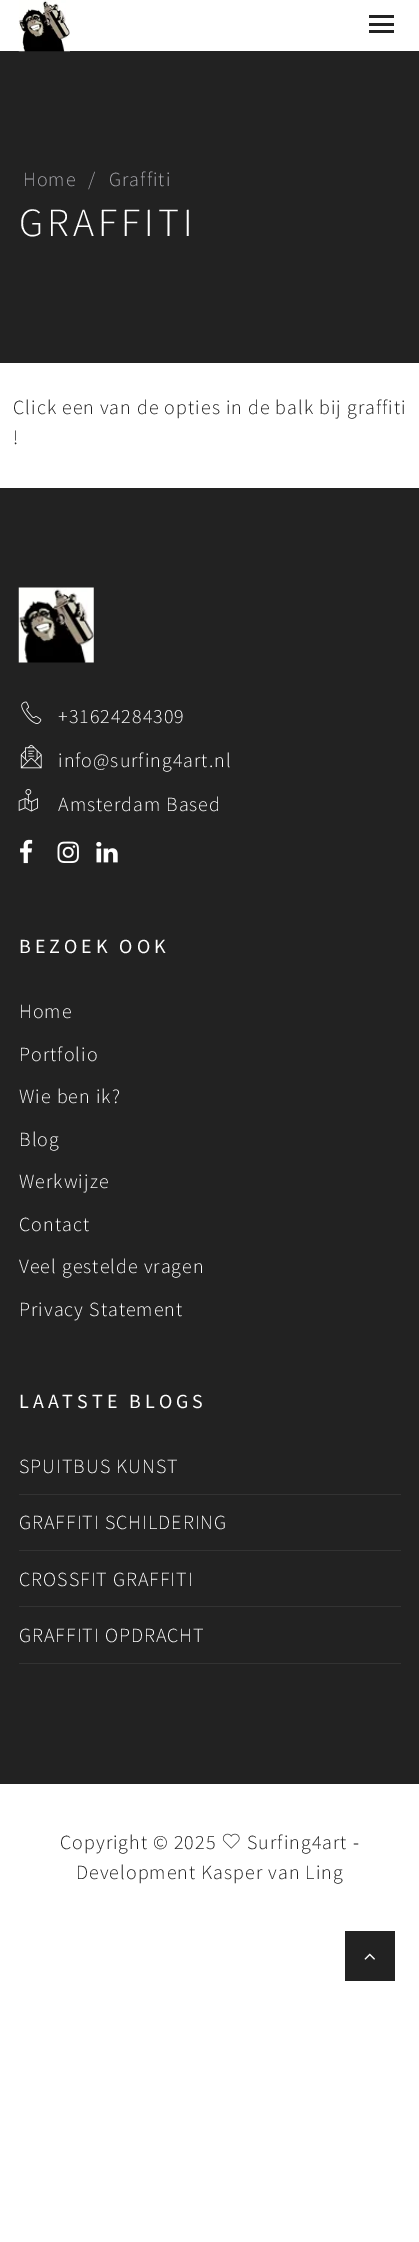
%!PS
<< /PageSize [419 2242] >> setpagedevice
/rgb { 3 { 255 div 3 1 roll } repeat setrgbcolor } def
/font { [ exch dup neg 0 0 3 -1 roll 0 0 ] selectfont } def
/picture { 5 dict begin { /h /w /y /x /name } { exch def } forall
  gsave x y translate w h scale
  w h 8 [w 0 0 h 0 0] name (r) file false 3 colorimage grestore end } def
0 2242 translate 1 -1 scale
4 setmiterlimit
255 255 255 rgb
0 0 419 2242 rectfill
34 34 34 rgb
0 51 419 312 rectfill
(img/1.rgb) 18 0 52 52 picture
[
  [369 15 25 3 34 34 34]
  [369 23 25 3 34 34 34]
  [369 30 25 3 34 34 34]
  [0 488 419 1296 34 34 34]
] { aload pop rgb rectfill } forall
(img/2.rgb) 18 587 76 76 picture
(img/3.rgb) 21 701 21 23 picture
(img/4.rgb) 20 744 22 25 picture
(img/5.rgb) 18 789 20 23 picture
(img/6.rgb) 20 839 13 25 picture
(img/7.rgb) 57 841 22 22 picture
(img/8.rgb) 96 841 22 22 picture
[
  [19 1494 382 1 51 51 51]
  [19 1550 382 1 51 51 51]
  [19 1606 382 1 51 51 51]
  [19 1663 382 1 51 51 51]
] { aload pop rgb rectfill } forall
(img/9.rgb) 222 1833 18 16 picture
34 34 34 rgb
345 1931 50 50 rectfill
(img/10.rgb) 364 1953 11 7 picture
/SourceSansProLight-Light 20 font
166 166 172 rgb
23 186 moveto 1 0 (Home) ashow
88 186 moveto 1 0 (/) ashow
109 186 moveto 1 0 (Graffiti) ashow
/SourceSansProLight-Light 40 font
255 255 255 rgb
19 236 moveto 4 0 (GRAFFITI) ashow
/SourceSansProLight-Light 20 font
34 34 34 rgb
13 414 moveto 1 0 (Click een van de opties in de balk bij graffiti) ashow
13 444 moveto 1 0 (!) ashow
255 255 255 rgb
58 723 moveto 1 0 (+31624284309) ashow
58 767 moveto 1 0 (info@surfing4art.nl) ashow
58 811 moveto 1 0 (Amsterdam Based) ashow
/SourceSansPro-Regular 20 font
19 953 moveto 4 0 (BEZOEK OOK) ashow
/SourceSansProLight-Light 20 font
19 1018 moveto 1 0 (Home) ashow
19 1061 moveto 1 0 (Portfolio) ashow
19 1103 moveto 1 0 (Wie ben ik?) ashow
19 1146 moveto 1 0 (Blog) ashow
19 1188 moveto 1 0 (Werkwijze) ashow
19 1231 moveto 1 0 (Contact) ashow
19 1273 moveto 1 0 (Veel gestelde vragen) ashow
19 1316 moveto 1 0 (Privacy Statement) ashow
/SourceSansPro-Regular 20 font
19 1408 moveto 4 0 (LAATSTE BLOGS) ashow
/SourceSansProLight-Light 20 font
19 1473 moveto 1 0 (SPUITBUS KUNST) ashow
19 1529 moveto 1 0 (GRAFFITI SCHILDERING) ashow
19 1586 moveto 1 0 (CROSSFIT GRAFFITI) ashow
19 1642 moveto 1 0 (GRAFFITI OPDRACHT) ashow
34 34 34 rgb
60 1849 moveto 1 0 (Copyright © 2025) ashow
247 1849 moveto 1 0 (Surfing4art -) ashow
76 1879 moveto 1 0 (Development Kasper van Ling) ashow
showpage
